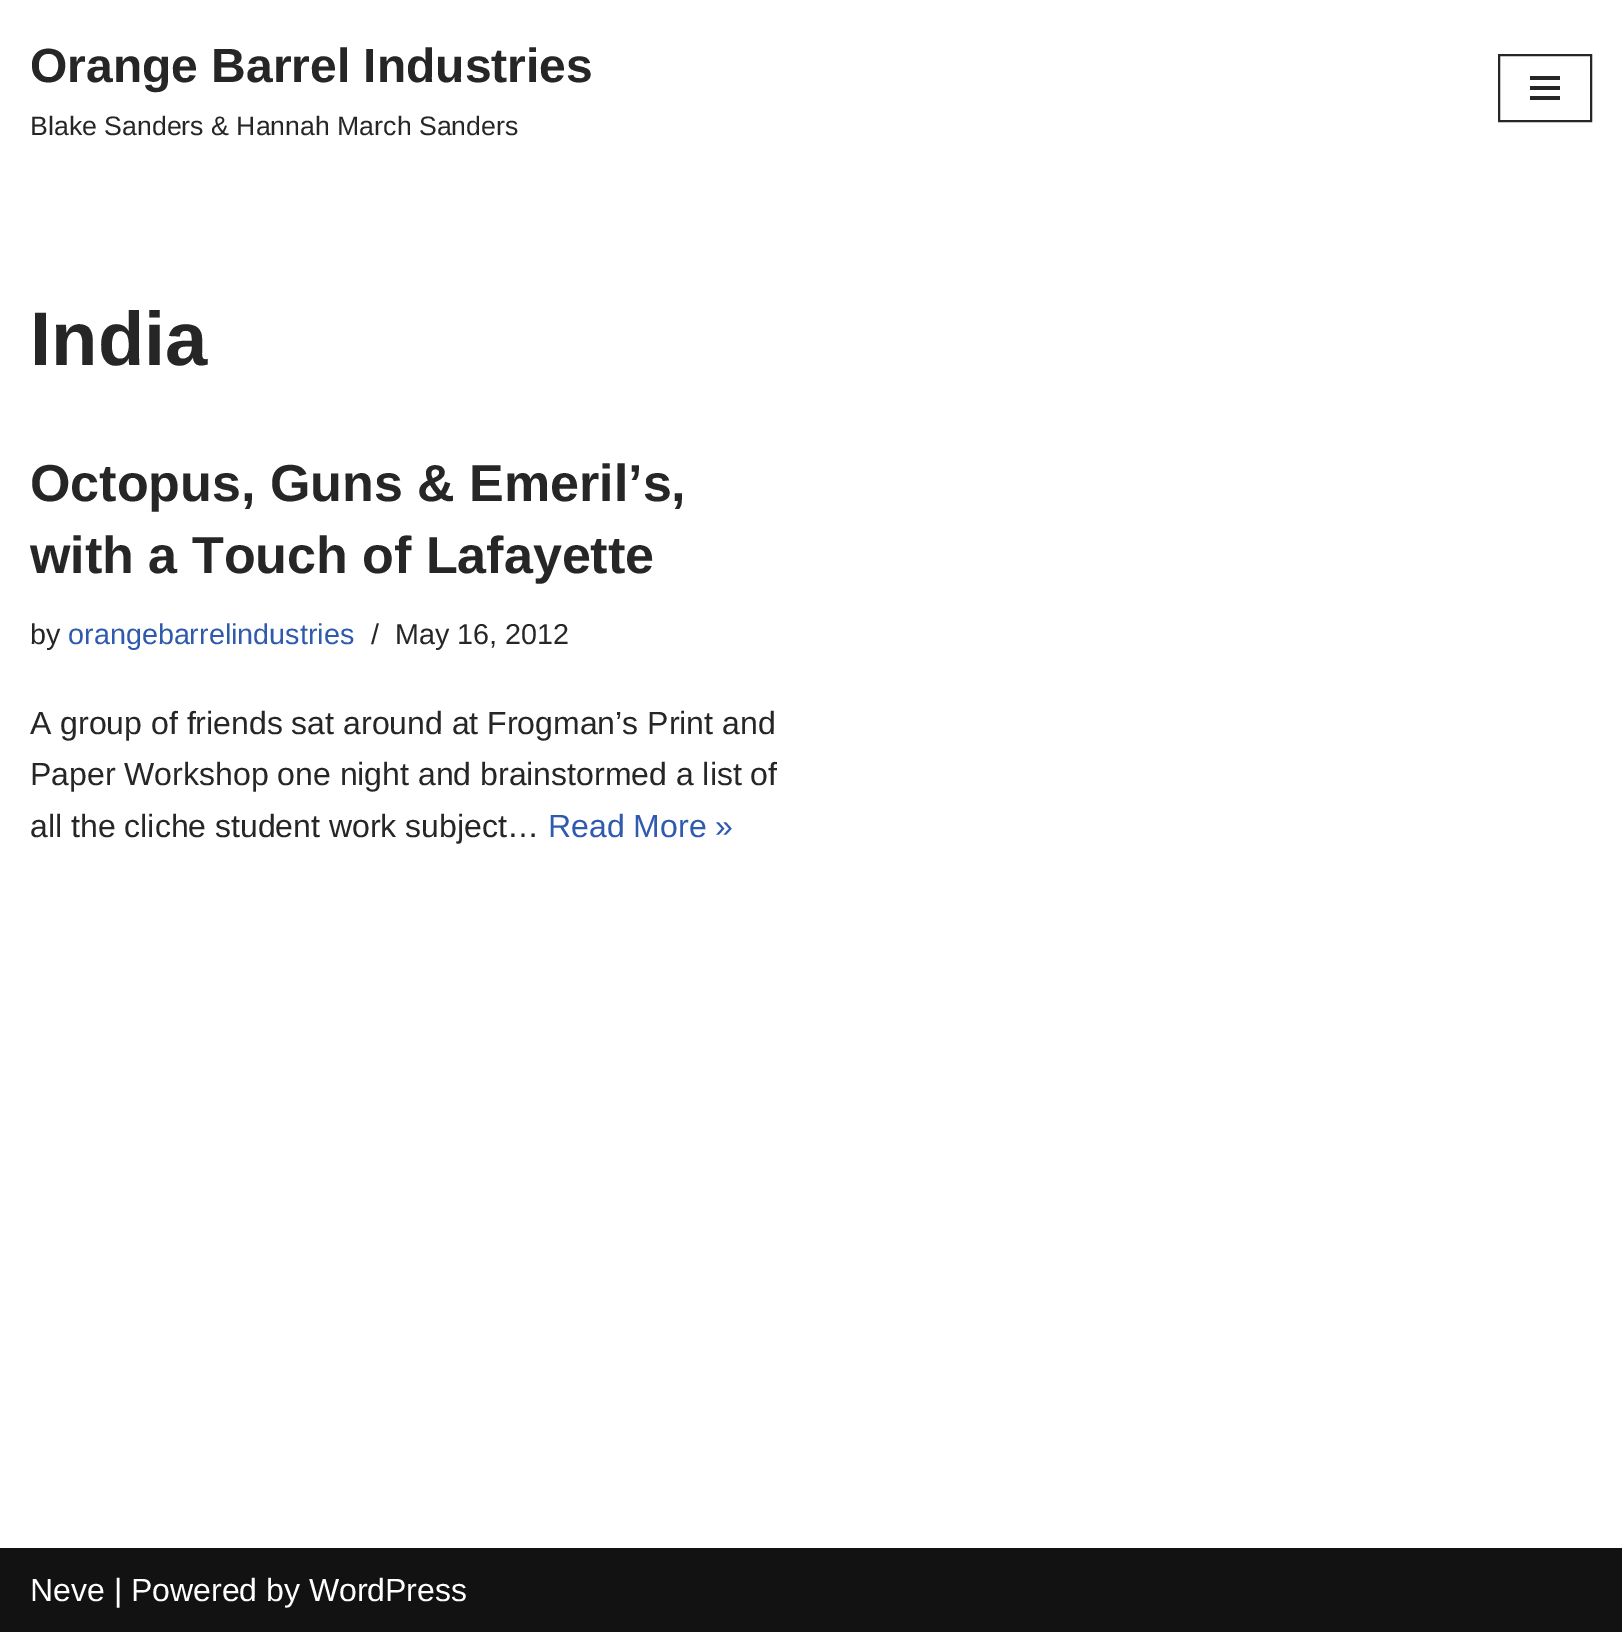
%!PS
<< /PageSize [1622 1632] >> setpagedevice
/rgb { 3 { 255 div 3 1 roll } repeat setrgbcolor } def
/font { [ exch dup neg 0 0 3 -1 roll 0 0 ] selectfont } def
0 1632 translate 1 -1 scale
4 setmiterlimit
255 255 255 rgb
0 0 1622 1632 rectfill
39 38 38 rgb
2 setlinewidth
1499 55 92 66 rectstroke
[
  [1530 76 30 4 39 38 38]
  [1530 86 30 4 39 38 38]
  [1530 96 30 4 39 38 38]
  [0 1548 1622 84 18 18 18]
] { aload pop rgb rectfill } forall
/LiberationSans-Bold 48 font
39 38 38 rgb
30 82 moveto (Orange Barrel Industries) show
/LiberationSans-Regular 26.7 font
30 135 moveto (Blake Sanders & Hannah March Sanders) show
/LiberationSans-Bold 76 font
30 365 moveto (India) show
/LiberationSans-Bold 52 font
30 501 moveto (Octopus, Guns & Emeril’s,) show
30 573 moveto (with a Touch of Lafayette) show
/LiberationSans-Regular 28.75 font
30 644 moveto (by) show
47 90 174 rgb
68 644 moveto (orangebarrelindustries) show
39 38 38 rgb
371 644 moveto (/) show
395 644 moveto (May 16, 2012) show
/LiberationSans-Regular 32 font
[
  [(A group of friends sat around at Frogman’s Print and) 30 734]
  [(Paper Workshop one night and brainstormed a list of) 30 785]
  [(all the cliche student work subject…) 30 837]
] { aload pop moveto show } forall
47 90 174 rgb
548 837 moveto (Read More ») show
255 255 255 rgb
30 1601 moveto (Neve | Powered by WordPress) show
showpage
